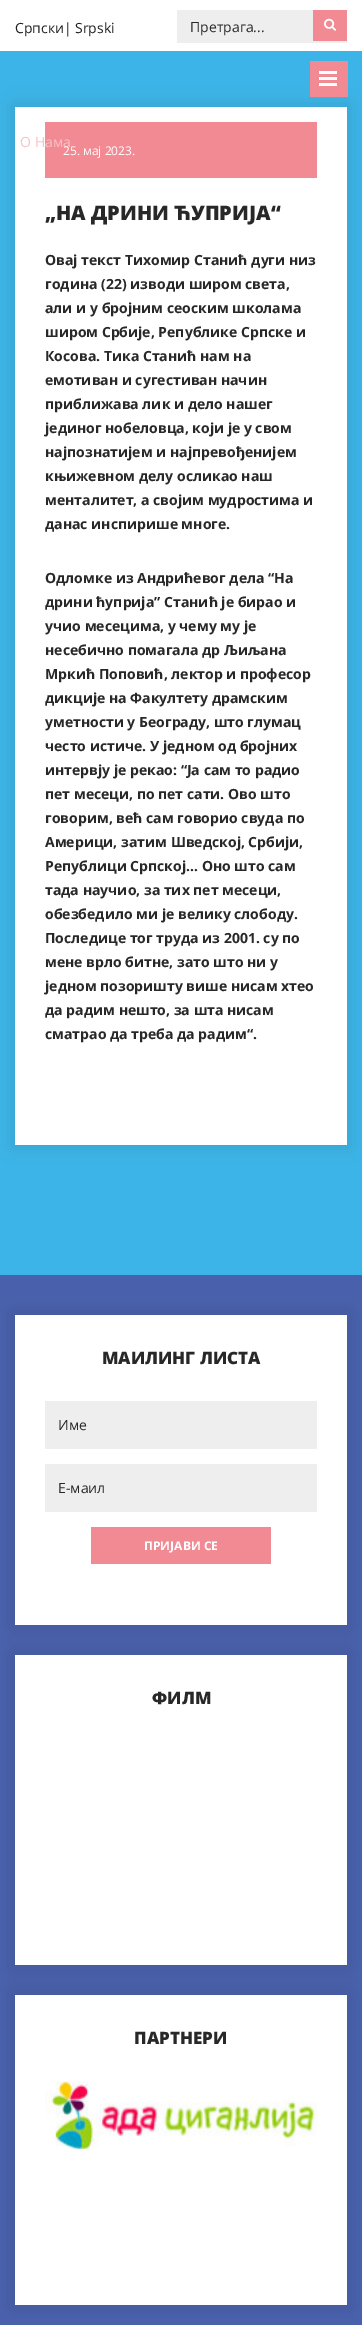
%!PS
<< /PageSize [362 2325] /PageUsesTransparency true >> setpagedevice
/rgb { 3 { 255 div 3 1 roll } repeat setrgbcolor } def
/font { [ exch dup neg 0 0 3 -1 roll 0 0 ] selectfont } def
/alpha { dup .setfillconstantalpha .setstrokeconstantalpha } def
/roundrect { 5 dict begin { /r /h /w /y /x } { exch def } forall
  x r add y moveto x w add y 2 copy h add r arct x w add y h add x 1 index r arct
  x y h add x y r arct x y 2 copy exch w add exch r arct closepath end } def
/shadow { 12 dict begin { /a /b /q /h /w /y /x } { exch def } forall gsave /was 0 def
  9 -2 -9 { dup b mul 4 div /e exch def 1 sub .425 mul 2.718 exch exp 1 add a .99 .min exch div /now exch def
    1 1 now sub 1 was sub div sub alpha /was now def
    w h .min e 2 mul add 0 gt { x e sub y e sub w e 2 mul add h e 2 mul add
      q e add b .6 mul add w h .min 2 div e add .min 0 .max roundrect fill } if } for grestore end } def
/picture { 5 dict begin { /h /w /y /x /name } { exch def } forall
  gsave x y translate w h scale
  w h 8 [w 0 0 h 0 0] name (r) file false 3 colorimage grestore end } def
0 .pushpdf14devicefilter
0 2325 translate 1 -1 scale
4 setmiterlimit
60 180 231 rgb
0 0 362 2325 rectfill
[
  [0 0 362 51 255 255 255]
  [177 10 170 33 238 238 238]
  [313 10 34 31 241 138 147]
] { aload pop rgb rectfill } forall
(img/1.rgb) 324 18 12 13 picture
0 0 0 rgb
12 104 338 1044 0 8 0.08 shadow
[
  [310 61 38 36 241 138 147]
  [319 83 18 3 255 255 255]
  [319 77 18 3 255 255 255]
  [319 71 18 3 255 255 255]
  [15 107 332 1038 255 255 255]
  [45 122 272 56 241 138 147]
  [0 1275 362 1050 73 96 172]
] { aload pop rgb rectfill } forall
0 0 0 rgb
12 1312 338 316 0 8 0.08 shadow
[
  [15 1315 332 310 255 255 255]
  [45 1401 272 48 238 238 238]
  [45 1464 272 48 238 238 238]
  [91 1527 180 37 241 138 147]
] { aload pop rgb rectfill } forall
0 0 0 rgb
12 1652 338 316 0 8 0.08 shadow
255 255 255 rgb
15 1655 332 310 rectfill
0 0 0 rgb
12 1992 338 316 0 8 0.08 shadow
255 255 255 rgb
15 1995 332 310 rectfill
(img/2.rgb) 45 2081 272 68 picture
/OpenSans-Regular 14 font
31 31 31 rgb
15 33 moveto (Српски) show
40 40 40 rgb
64 33 moveto (|) show
31 31 31 rgb
75 33 moveto (Srpski) show
40 40 40 rgb
190 32 moveto (Претрага...) show
248 193 197 rgb
20 147 moveto (О Нaмa) show
/OpenSans-Regular 12 font
255 255 255 rgb
63 155 moveto (25. мaj 2023.) show
/OpenSans-ExtraBold 20 font
40 40 40 rgb
45 220 moveto („НА ДРИНИ ЋУПРИЈА“) show
/OpenSans-Bold 14 font
[
  [(Овај текст Тихомир Станић дуги низ) 45 265]
  [(година \(22\) изводи широм света,) 45 289]
  [(али и у бројним сеоским школама) 45 313]
  [(широм Србије, Републике Српске и) 45 337]
  [(Косова. Тика Станић нам на) 45 361]
  [(емотиван и сугестиван начин) 45 385]
  [(приближава лик и дело нашег) 45 409]
  [(јединог нобеловца, који је у свом) 45 433]
  [(најпознатијем и најпревођенијем) 45 457]
  [(књижевном делу осликао наш) 45 481]
  [(менталитет, а својим мудростима и) 45 505]
  [(данас инспирише многе.) 45 529]
  [(Одломке из Андрићевог дела “На) 45 583]
  [(дрини ћуприја” Станић је бирао и) 45 607]
  [(учио месецима, у чему му је) 45 631]
  [(несебично помагала др Љиљана) 45 655]
  [(Мркић Поповић, лектор и професор) 45 679]
  [(дикције на Факултету драмским) 45 703]
  [(уметности у Београду, што глумац) 45 727]
  [(често истиче. У једном од бројних) 45 751]
  [(интервју је рекао: “Ја сам то радио) 45 775]
  [(пет месеци, по пет сати. Ово што) 45 799]
  [(говорим, већ сам говорио свуда по) 45 823]
  [(Америци, затим Шведској, Србији,) 45 847]
  [(Републици Српској… Оно што сам) 45 871]
  [(тада научио, за тих пет месеци,) 45 895]
  [(обезбедило ми је велику слободу.) 45 919]
  [(Последице тог труда из 2001. су по) 45 943]
  [(мене врло битне, зато што ни у) 45 967]
  [(једном позоришту више нисам хтео) 45 991]
  [(да радим нешто, за шта нисам) 45 1015]
  [(сматрао да треба да радим“.) 45 1039]
] { aload pop moveto show } forall
/OpenSans-ExtraBold 17 font
102 1364 moveto (МАИЛИНГ ЛИСТА) show
/OpenSans-Regular 14 font
58 1430 moveto (Име) show
58 1493 moveto (Е-маил) show
/OpenSans-Bold 12 font
255 255 255 rgb
144 1550 moveto (ПРИЈАВИ СЕ) show
/OpenSans-ExtraBold 17 font
40 40 40 rgb
152 1704 moveto (ФИЛМ) show
134 2044 moveto (ПАРТНЕРИ) show
.poppdf14devicefilter showpage
